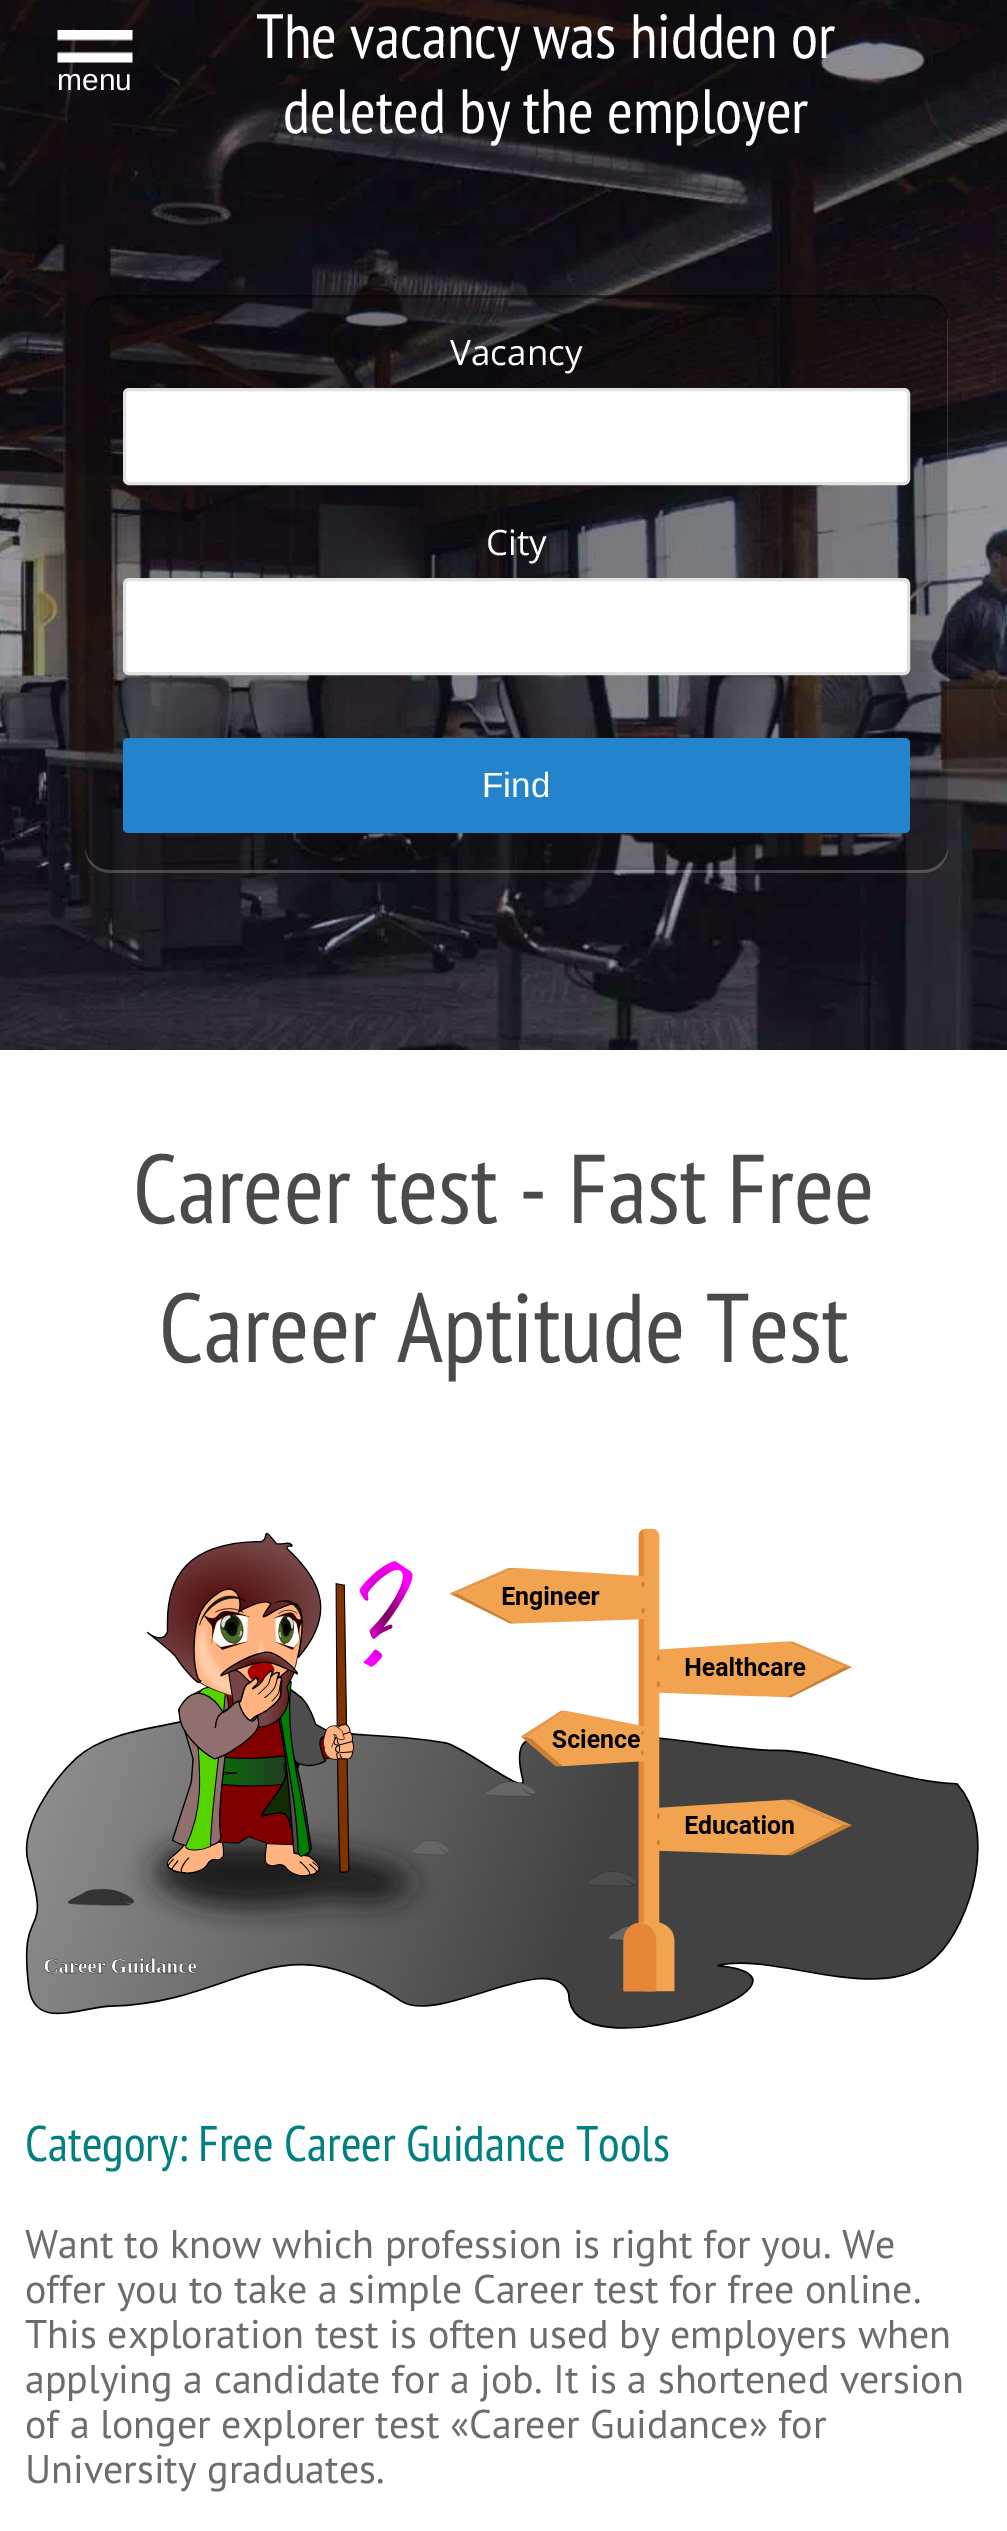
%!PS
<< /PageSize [1007 2531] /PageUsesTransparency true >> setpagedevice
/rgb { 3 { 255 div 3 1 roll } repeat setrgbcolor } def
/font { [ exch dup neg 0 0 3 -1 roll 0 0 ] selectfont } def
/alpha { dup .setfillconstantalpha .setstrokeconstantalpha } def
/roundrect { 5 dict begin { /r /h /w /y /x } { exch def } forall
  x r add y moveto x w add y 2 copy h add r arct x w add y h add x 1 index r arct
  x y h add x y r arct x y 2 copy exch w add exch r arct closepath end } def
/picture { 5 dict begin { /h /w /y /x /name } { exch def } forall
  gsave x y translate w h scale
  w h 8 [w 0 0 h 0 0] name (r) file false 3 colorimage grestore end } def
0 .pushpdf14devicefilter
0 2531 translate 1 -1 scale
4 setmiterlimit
255 255 255 rgb
0 0 1007 2531 rectfill
(img/1.rgb) 0 0 1007 1050 picture
(img/2.rgb) 57 30 76 33 picture
0.2 alpha
85 845 moveto 85 848 lineto 85 862 96 873 110 873 curveto 923 873 lineto 937 873 948 862 948 848 curveto 948 323 lineto 947 317 lineto 948 845 lineto 948 859 936 870 922 870 curveto 110 870 lineto 96 870 85 859 85 845 curveto closepath fill
0 0 0 rgb
85 295 863 575 25 roundrect fill
0.4 alpha
110 298 moveto 922 298 lineto 936 298 948 309 948 322 curveto 948 320 lineto 948 306 937 295 923 295 curveto 110 295 lineto 96 295 85 306 85 320 curveto 85 322 lineto 85 309 96 298 110 298 curveto closepath fill
1 alpha
255 255 255 rgb
124.5 389.5 784 94 4.5 roundrect gsave fill grestore
225 225 225 rgb
3 setlinewidth
stroke
255 255 255 rgb
124.5 579.5 784 94 4.5 roundrect gsave fill grestore
225 225 225 rgb
stroke
35 131 205 rgb
123 738 787 95 5 roundrect fill
(img/3.rgb) 25 1528 954 501 picture
/LiberationSans-Regular 30 font
255 255 255 rgb
57 90 moveto (menu) show
/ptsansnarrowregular-Regular 62.5 font
256 58 moveto (The vacancy was hidden or) show
283 133 moveto (deleted by the employer) show
/OpenSans-Regular 35 font
450 365 moveto (Vacancy) show
486 555 moveto (City) show
/LiberationSans-Regular 35 font
482 797 moveto (Find) show
/ptsansnarrowregular-Regular 97.5 font
74 74 74 rgb
133 1223 moveto (Career test - Fast Free) show
159 1362 moveto (Career Aptitude Test) show
/ptsansnarrowregular-Regular 50 font
0 128 128 rgb
25 2161 moveto (Category: Free Career Guidance Tools) show
/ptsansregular-Regular 40 font
108 108 108 rgb
[
  [(Want to know which profession is right for you. We) 25 2258]
  [(offer you to take a simple Career test for free online.) 25 2303]
  [(This exploration test is often used by employers when) 25 2348]
  [(applying a candidate for a job. It is a shortened version) 25 2393]
  [(of a longer explorer test «Career Guidance» for) 25 2438]
  [(University graduates.) 25 2483]
] { aload pop moveto show } forall
.poppdf14devicefilter showpage
